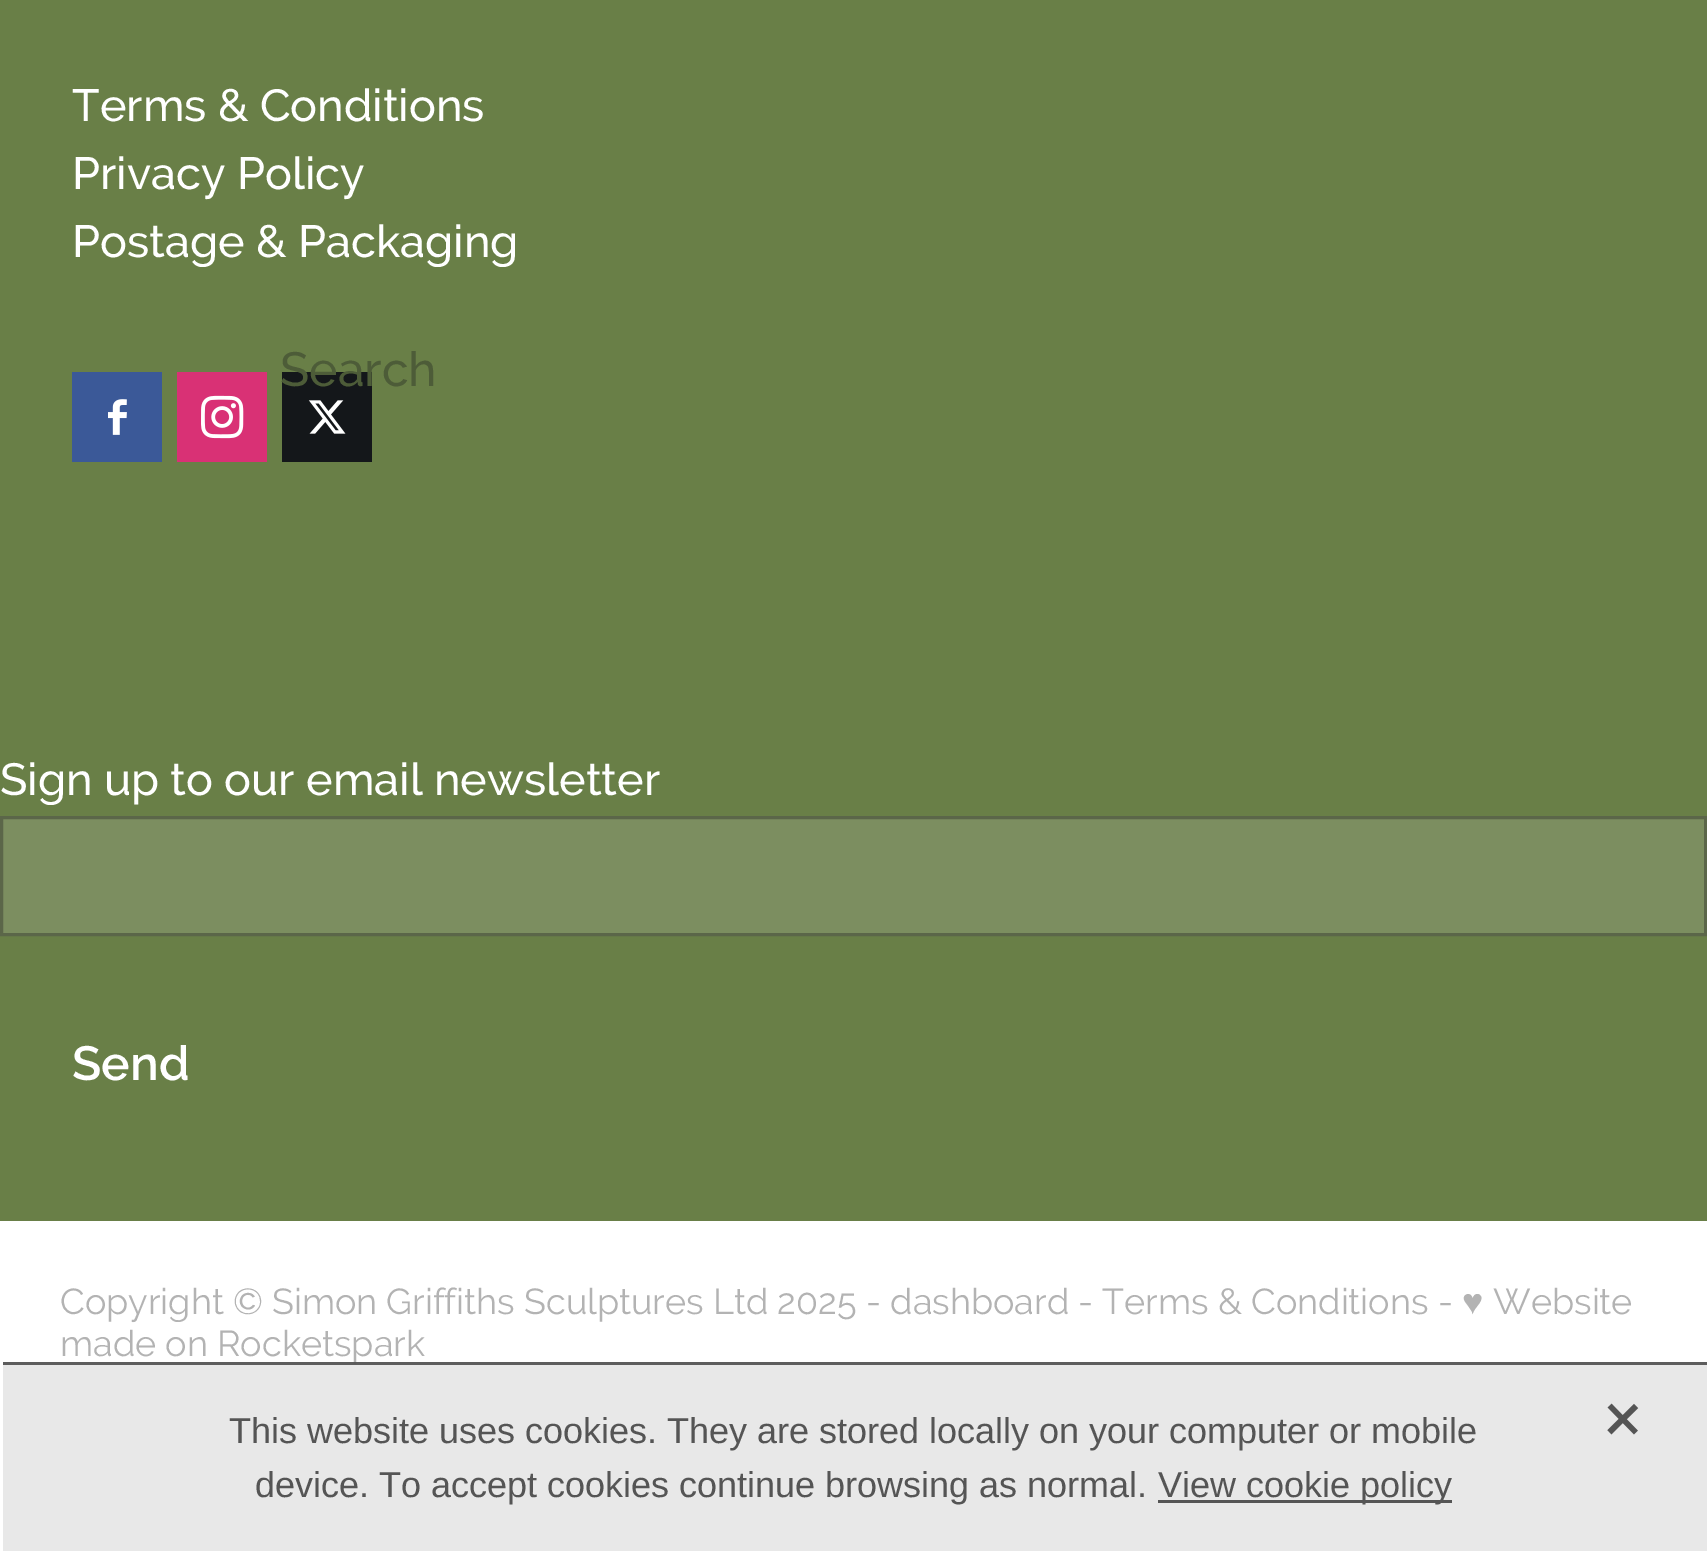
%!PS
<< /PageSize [1707 1551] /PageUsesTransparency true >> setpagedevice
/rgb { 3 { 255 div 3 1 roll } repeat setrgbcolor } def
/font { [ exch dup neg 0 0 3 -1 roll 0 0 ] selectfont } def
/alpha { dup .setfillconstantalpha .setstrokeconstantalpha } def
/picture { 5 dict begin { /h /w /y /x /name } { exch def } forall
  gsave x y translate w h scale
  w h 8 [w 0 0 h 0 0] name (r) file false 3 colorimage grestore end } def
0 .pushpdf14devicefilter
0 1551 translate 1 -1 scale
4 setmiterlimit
255 255 255 rgb
0 0 1707 1551 rectfill
105 127 71 rgb
0 0 1707 1221 rectfill
59 89 152 rgb
72 372 90 90 rectfill
(img/1.rgb) 108 399 19 36 picture
217 49 117 rgb
177 372 90 90 rectfill
(img/2.rgb) 201 395 43 44 picture
20 23 26 rgb
282 372 90 90 rectfill
(img/3.rgb) 308 400 38 34 picture
124 142 96 rgb
1.5 817.5 moveto 1705.5 817.5 lineto 1705.5 934.5 lineto 1.5 934.5 lineto closepath gsave fill grestore
91 102 73 rgb
3 setlinewidth
stroke
/Raleway-Medium 45 font
255 255 255 rgb
[
  [(Terms & Conditions) 72 121]
  [(Privacy Policy) 72 189]
  [(Postage & Packaging) 72 257]
  [(Sign up to our email newsletter) 0 795]
] { aload pop moveto show } forall
/Raleway-SemiBold 48 font
72 1080 moveto (Send) show
/Raleway-Regular 36 font
179 179 179 rgb
[
  [(Copyright © Simon Griffiths Sculptures Ltd 2025 - dashboard) 60 1314]
  [(- Terms & Conditions) 1078 1314]
  [(-) 1438 1314]
] { aload pop moveto show } forall
/LiberationSans-Regular 36 font
1462 1314 moveto (♥) show
/Raleway-Regular 36 font
1493 1314 moveto (Website) show
60 1356 moveto (made on Rocketspark) show
/Raleway-Medium 48 font
77 92 56 rgb
280 386 moveto (Search) show
0.9 alpha
229 229 229 rgb
3 1362 1704 189 rectfill
0.6 alpha
0 0 0 rgb
3 1362 1704 3 rectfill
/LiberationSans-Regular 36 font
1 alpha
85 85 85 rgb
229 1443 moveto (This website uses cookies. They are stored locally on your computer or mobile) show
255 1497 moveto (device. To accept cookies continue browsing as normal.) show
1158 1500 294 3 rectfill
1158 1497 moveto (View cookie policy) show
(img/4.rgb) 1607 1403 32 32 picture
.poppdf14devicefilter showpage
